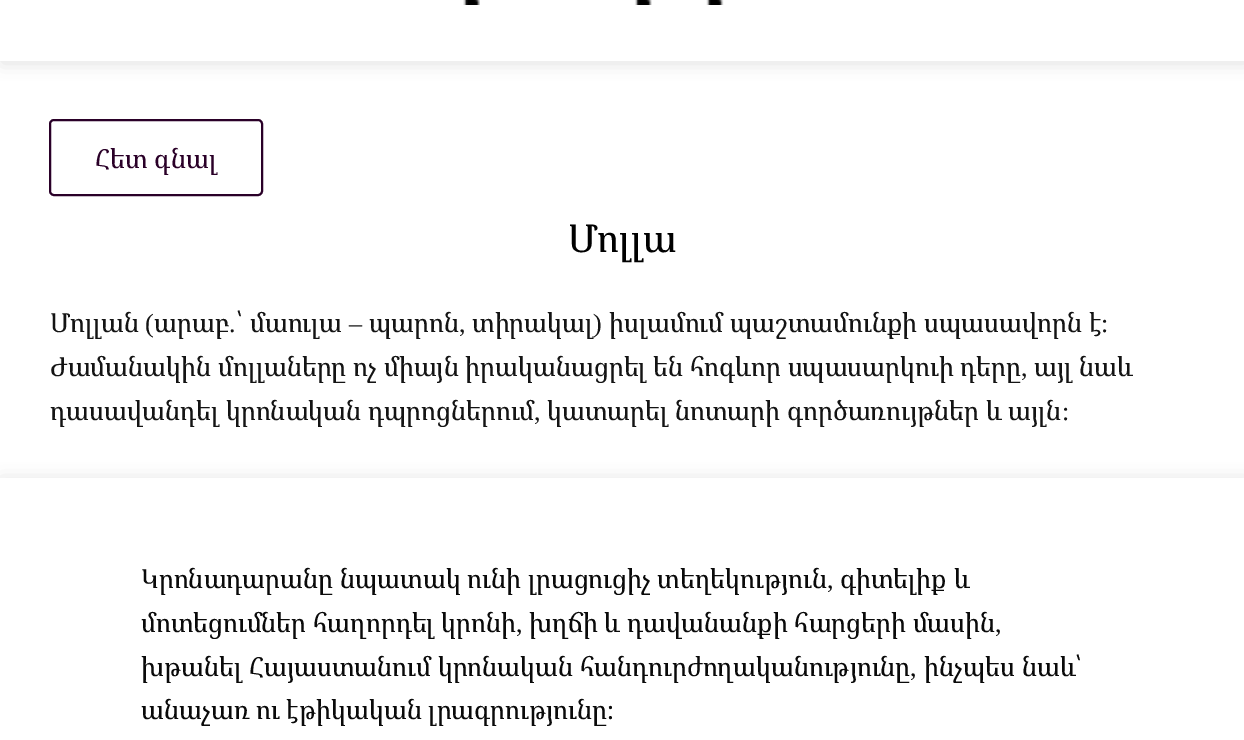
%!PS
<< /PageSize [1244 740] /PageUsesTransparency true >> setpagedevice
/rgb { 3 { 255 div 3 1 roll } repeat setrgbcolor } def
/font { [ exch dup neg 0 0 3 -1 roll 0 0 ] selectfont } def
/alpha { dup .setfillconstantalpha .setstrokeconstantalpha } def
/roundrect { 5 dict begin { /r /h /w /y /x } { exch def } forall
  x r add y moveto x w add y 2 copy h add r arct x w add y h add x 1 index r arct
  x y h add x y r arct x y 2 copy exch w add exch r arct closepath end } def
/shadow { 12 dict begin { /a /b /q /h /w /y /x } { exch def } forall gsave /was 0 def
  9 -2 -9 { dup b mul 4 div /e exch def 1 sub .425 mul 2.718 exch exp 1 add a .99 .min exch div /now exch def
    1 1 now sub 1 was sub div sub alpha /was now def
    w h .min e 2 mul add 0 gt { x e sub y e sub w e 2 mul add h e 2 mul add
      q e add b .6 mul add w h .min 2 div e add .min 0 .max roundrect fill } if } for grestore end } def
/picture { 5 dict begin { /h /w /y /x /name } { exch def } forall
  gsave x y translate w h scale
  w h 8 [w 0 0 h 0 0] name (r) file false 3 colorimage grestore end } def
0 .pushpdf14devicefilter
0 740 translate 1 -1 scale
4 setmiterlimit
255 255 255 rgb
0 0 1244 740 rectfill
gsave
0 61 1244 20 rectclip
223 223 223 rgb
2 -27 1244 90 0 9 1 shadow
grestore
(img/1.rgb) 463 0 261 5 picture
42 0 40 rgb
2 setlinewidth
50 120 212 75 4 roundrect stroke
gsave
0 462 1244 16 rectclip
223 223 223 rgb
2 480 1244 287 0 9 1 shadow
grestore
/NotoSerifArmenian-Regular 26.25 font
95 168 moveto (Հետ գնալ) show
/NotoSerifArmenian-Regular 38.5 font
0 0 0 rgb
568 252 moveto (Մոլլա) show
/NotoSerifArmenian-Regular 26.25 font
20 20 20 rgb
50 332 moveto (Մոլլան) show
/LiberationSerif-Regular 26.25 font
145 332 moveto (\() show
/NotoSerifArmenian-Regular 26.25 font
154 332 moveto (արաբ ՝ մաուլա) show
/LiberationSerif-Regular 26.25 font
349 332 moveto (–) show
/NotoSerifArmenian-Regular 26.25 font
369 332 moveto (պարոն) show
472 332 moveto (տիրակալ) show
/LiberationSerif-Regular 26.25 font
593 332 moveto (\)) show
/NotoSerifArmenian-Regular 26.25 font
609 332 moveto (իսլամում պաշտամունքի սպասավորն է) show
/LiberationSerif-Regular 26.25 font
[
  [(:) 1101 332]
  [(.) 229 332]
  [(,) 459 332]
] { aload pop moveto show } forall
/NotoSerifArmenian-Regular 26.25 font
50 376 moveto (Ժամանակին մոլլաները ոչ միայն իրականացրել են հոգևոր սպասարկուի դերը) show
/LiberationSerif-Regular 26.25 font
1021 376 moveto (,) show
/NotoSerifArmenian-Regular 26.25 font
1034 376 moveto (այլ նաև) show
50 420 moveto (դասավանդել կրոնական դպրոցներում) show
/LiberationSerif-Regular 26.25 font
534 420 moveto (,) show
/NotoSerifArmenian-Regular 26.25 font
547 420 moveto (կատարել նոտարի գործառույթներ և այլն) show
/LiberationSerif-Regular 26.25 font
1062 420 moveto (:) show
/NotoSerifArmenian-Regular 26.25 font
10 10 10 rgb
141 588 moveto (Կրոնադարանը նպատակ ունի լրացուցիչ տեղեկություն) show
/LiberationSerif-Regular 26.25 font
827 588 moveto (,) show
/NotoSerifArmenian-Regular 26.25 font
840 588 moveto (գիտելիք և) show
141 632 moveto (մոտեցումներ հաղորդել կրոնի) show
/LiberationSerif-Regular 26.25 font
516 632 moveto (,) show
/NotoSerifArmenian-Regular 26.25 font
529 632 moveto (խղճի և դավանանքի հարցերի մասին) show
/LiberationSerif-Regular 26.25 font
995 632 moveto (,) show
/NotoSerifArmenian-Regular 26.25 font
141 676 moveto (խթանել Հայաստանում կրոնական հանդուրժողականությունը) show
/LiberationSerif-Regular 26.25 font
910 676 moveto (,) show
/NotoSerifArmenian-Regular 26.25 font
924 676 moveto (ինչպես նաև՝) show
141 719 moveto (անաչառ ու էթիկական լրագրությունը։) show
.poppdf14devicefilter showpage
